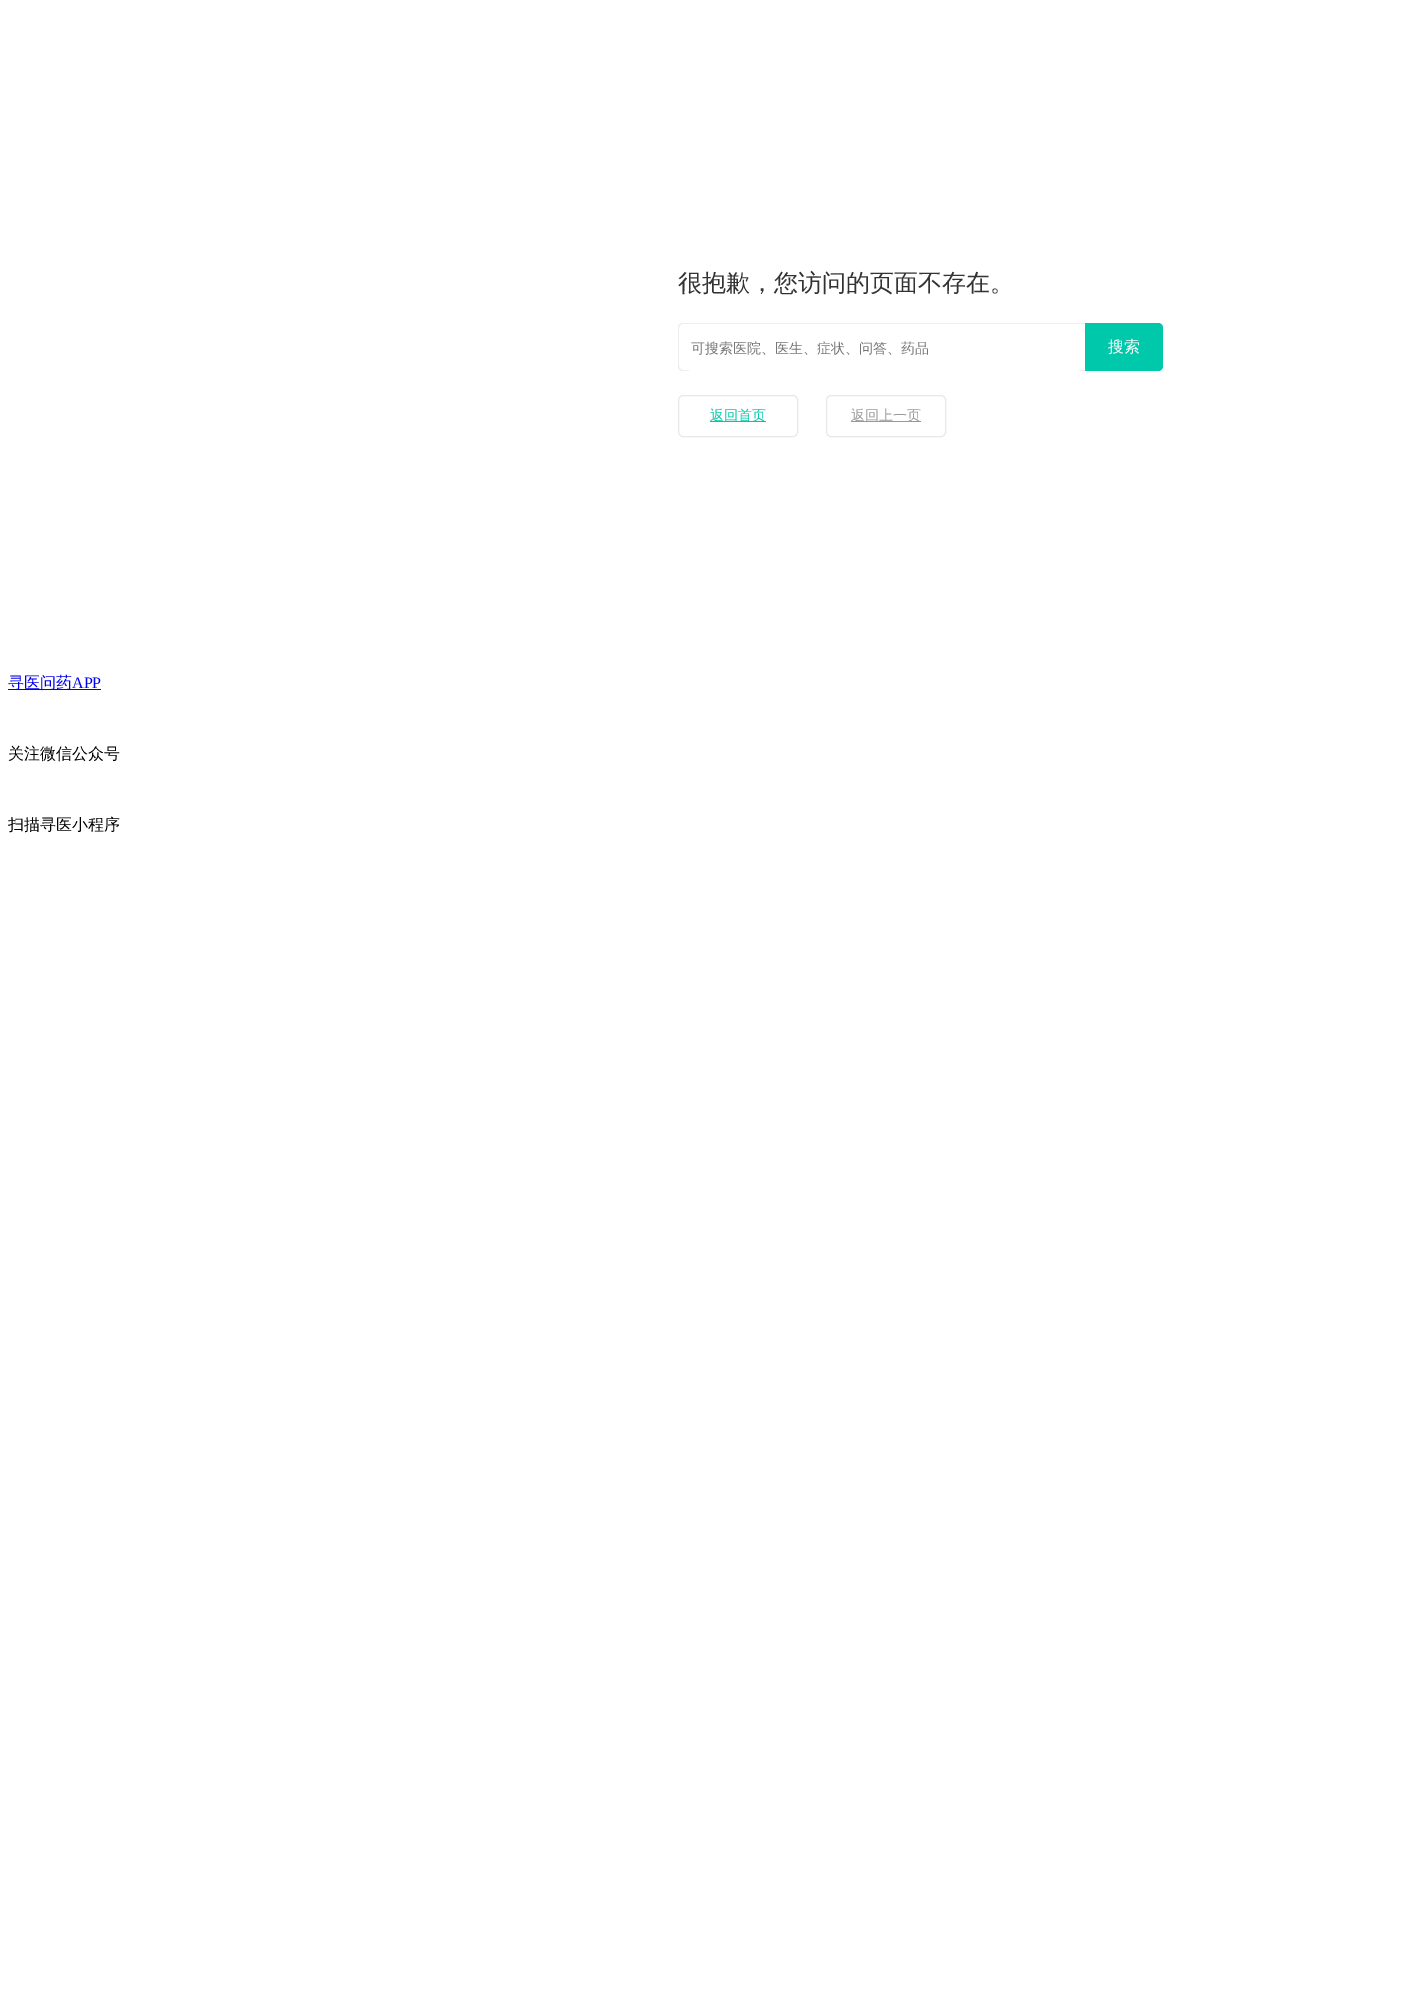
%!PS
<< /PageSize [1417 2010] >> setpagedevice
/rgb { 3 { 255 div 3 1 roll } repeat setrgbcolor } def
/font { [ exch dup neg 0 0 3 -1 roll 0 0 ] selectfont } def
/roundrect { 5 dict begin { /r /h /w /y /x } { exch def } forall
  x r add y moveto x w add y 2 copy h add r arct x w add y h add x 1 index r arct
  x y h add x y r arct x y 2 copy exch w add exch r arct closepath end } def
0 2010 translate 1 -1 scale
4 setmiterlimit
255 255 255 rgb
0 0 1417 2010 rectfill
238 238 238 rgb
683 323 moveto 1085 323 lineto 1085 371 lineto 683 371 lineto 680 371 678 369 678 366 curveto 678 328 lineto 678 325 680 323 683 323 curveto closepath 683 324 moveto 1085 324 lineto 1085 370 lineto 683 370 lineto 681 370 679 368 679 366 curveto 679 328 lineto 679 326 681 324 683 324 curveto closepath eofill
255 255 255 rgb
689 370 390 1 rectfill
0 200 170 rgb
1085 323 moveto 1158 323 lineto 1161 323 1163 325 1163 328 curveto 1163 366 lineto 1163 369 1161 371 1158 371 curveto 1085 371 lineto closepath fill
232 232 232 rgb
678.5 395.5 119 41 4.5 roundrect stroke
0 200 170 rgb
710 421 56 1 rectfill
232 232 232 rgb
826.5 395.5 119 41 4.5 roundrect stroke
153 153 153 rgb
851 421 70 1 rectfill
0 0 238 rgb
8 689 93 1 rectfill
/WenQuanYiZenHei-Medium 24 font
51 51 51 rgb
678 291 moveto (很抱歉，您访问的页面不存在。) show
/WenQuanYiZenHei-Medium 14 font
117 117 117 rgb
691 353 moveto (可搜索医院、医生、症状、问答、药品) show
/WenQuanYiZenHei-Medium 16 font
255 255 255 rgb
1108 352 moveto (搜索) show
/WenQuanYiZenHei-Medium 14 font
0 200 170 rgb
710 420 moveto (返回首页) show
153 153 153 rgb
851 420 moveto (返回上一页) show
/WenQuanYiZenHei-Medium 16 font
0 0 238 rgb
8 688 moveto (寻医问药) show
/LiberationSerif-Regular 16 font
72 688 moveto (APP) show
/WenQuanYiZenHei-Medium 16 font
0 0 0 rgb
8 759 moveto (关注微信公众号) show
8 830 moveto (扫描寻医小程序) show
showpage
